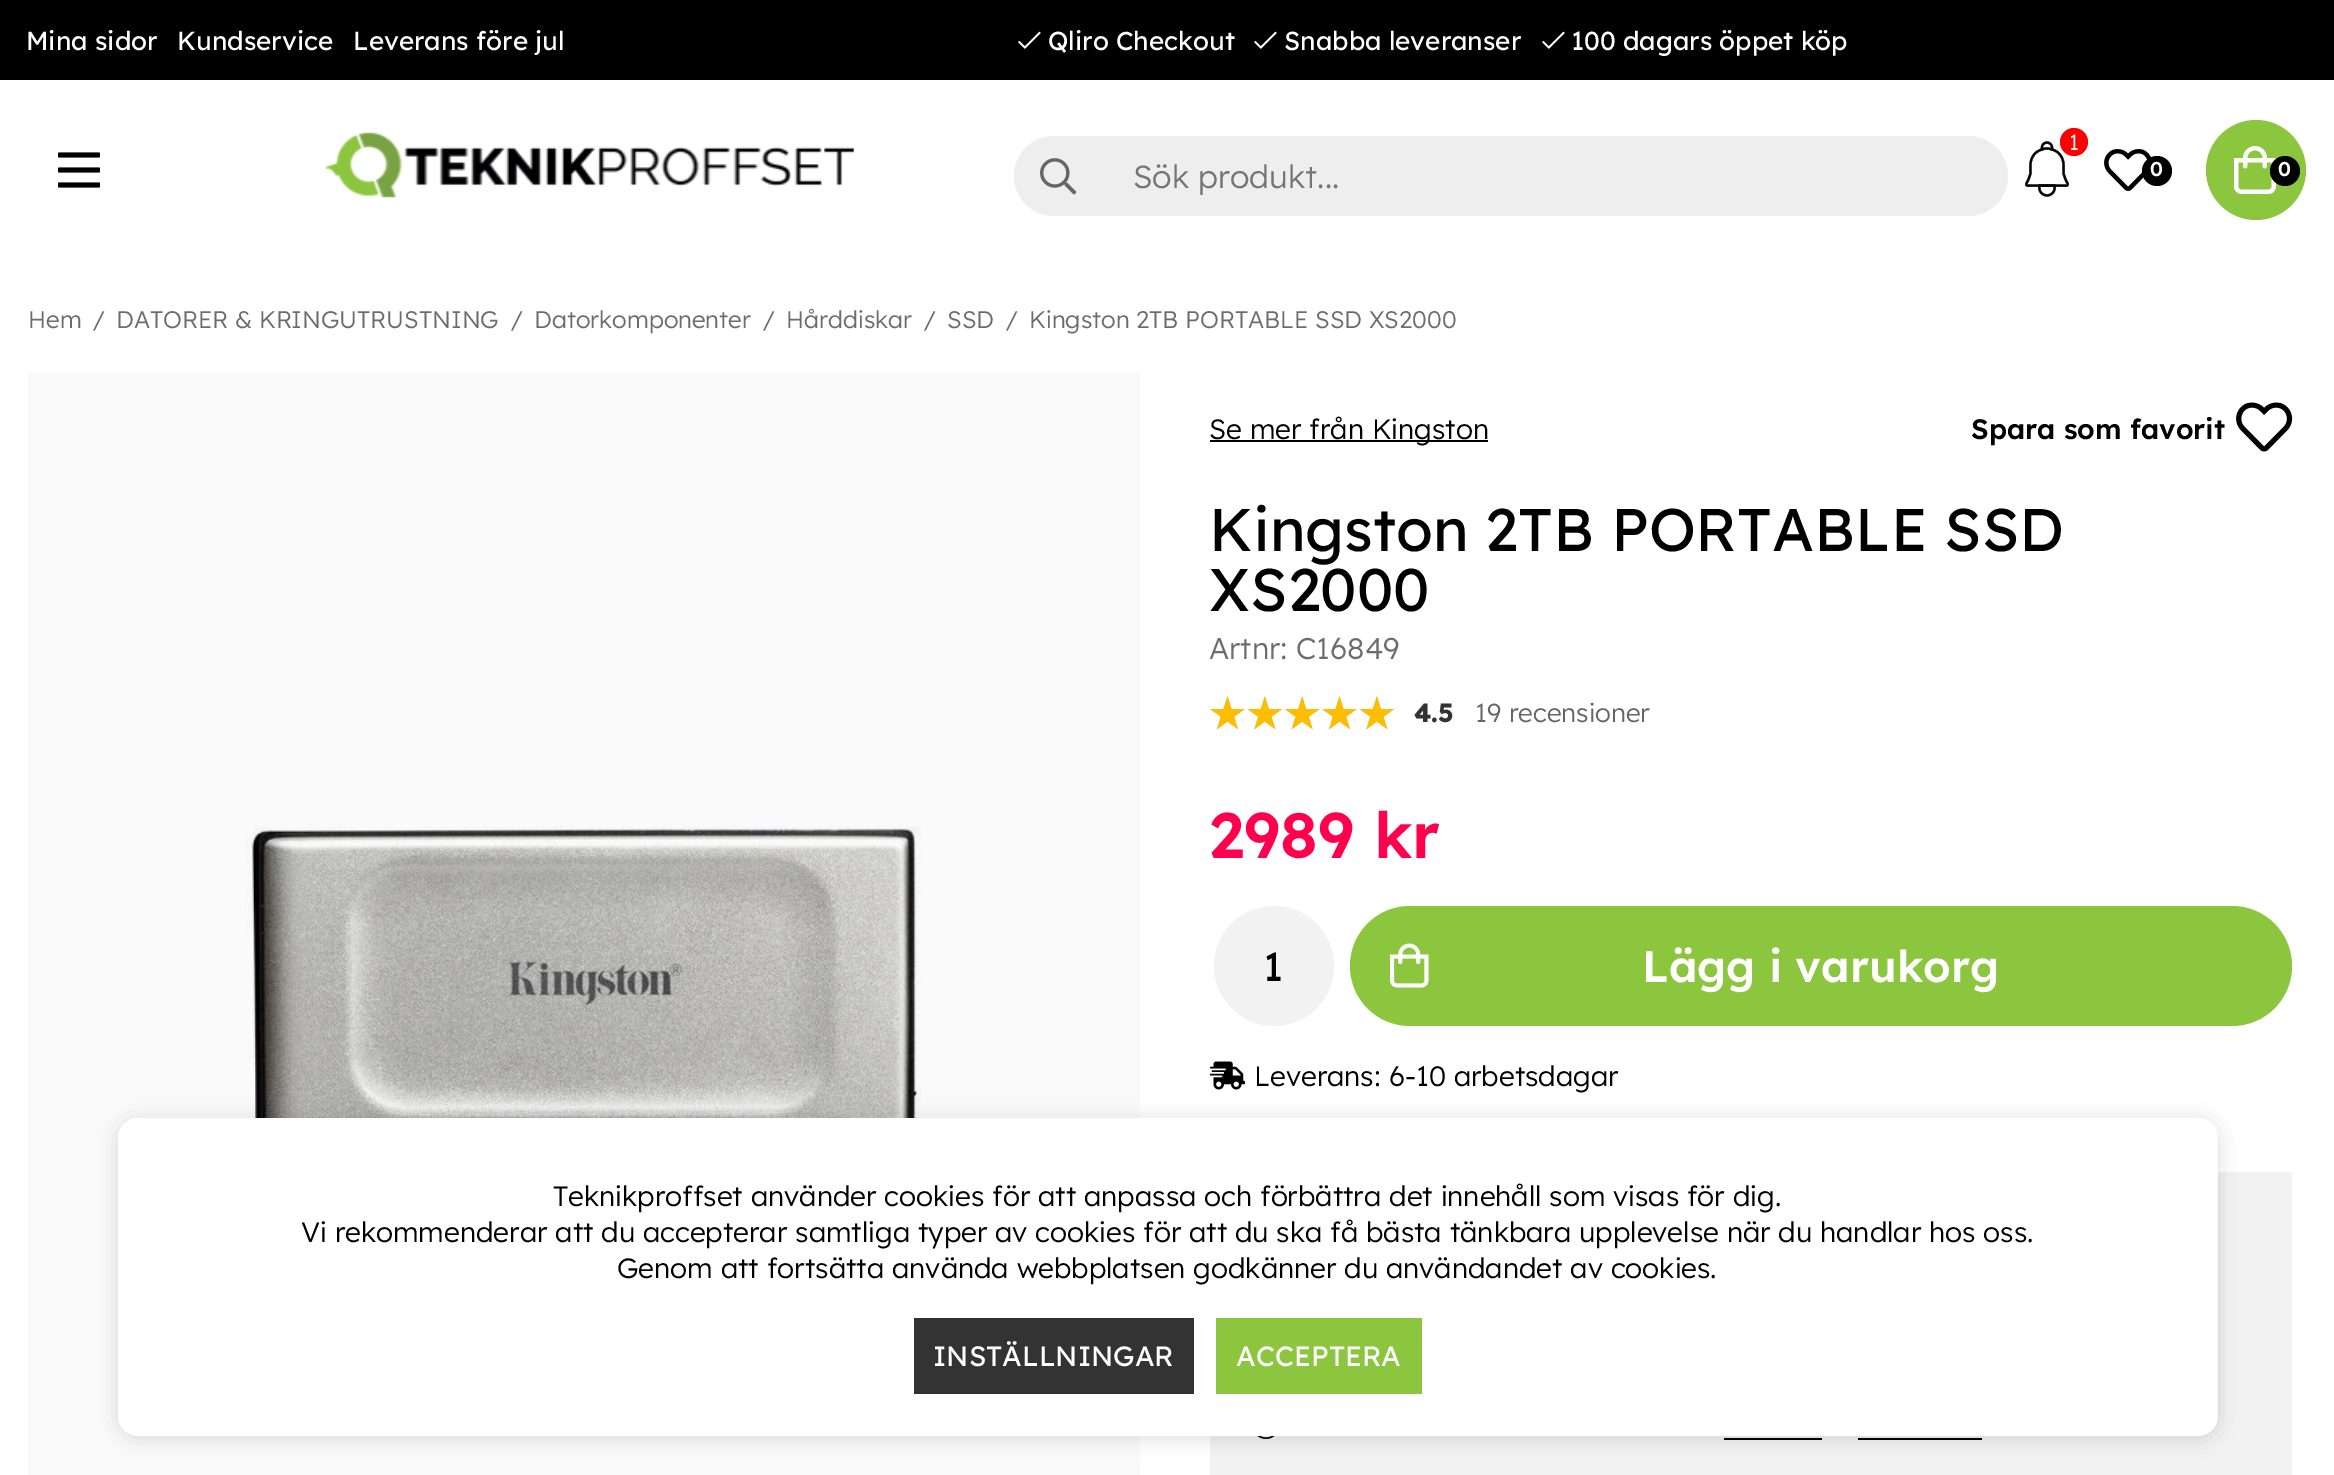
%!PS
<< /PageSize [2334 1475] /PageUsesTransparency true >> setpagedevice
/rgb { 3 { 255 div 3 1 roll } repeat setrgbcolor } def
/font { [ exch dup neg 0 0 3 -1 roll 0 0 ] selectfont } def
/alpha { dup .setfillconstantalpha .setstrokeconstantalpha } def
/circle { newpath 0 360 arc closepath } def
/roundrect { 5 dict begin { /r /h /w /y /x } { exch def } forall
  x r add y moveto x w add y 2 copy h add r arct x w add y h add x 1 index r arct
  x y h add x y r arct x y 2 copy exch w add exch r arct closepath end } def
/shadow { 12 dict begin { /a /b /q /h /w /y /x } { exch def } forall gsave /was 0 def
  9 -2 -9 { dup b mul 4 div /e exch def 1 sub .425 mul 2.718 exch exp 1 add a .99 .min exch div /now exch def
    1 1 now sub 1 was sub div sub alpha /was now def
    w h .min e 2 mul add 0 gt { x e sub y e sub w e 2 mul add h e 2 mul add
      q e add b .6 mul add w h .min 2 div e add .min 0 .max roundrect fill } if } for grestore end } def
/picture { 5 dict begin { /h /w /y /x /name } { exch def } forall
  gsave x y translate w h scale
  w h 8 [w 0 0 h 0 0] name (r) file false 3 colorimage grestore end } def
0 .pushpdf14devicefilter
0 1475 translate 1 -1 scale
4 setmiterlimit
255 255 255 rgb
0 0 2334 1475 rectfill
250 250 250 rgb
28 372 1112 1103 rectfill
0 0 0 rgb
0 0 2334 80 rectfill
(img/1.rgb) 1018 31 23 18 picture
(img/1.rgb) 1254 31 23 18 picture
(img/1.rgb) 1542 31 23 18 picture
(img/2.rgb) 58 152 42 36 picture
(img/3.rgb) 326 132 528 66 picture
238 238 238 rgb
1014 136 994 80 40 roundrect fill
(img/4.rgb) 1040 158 37 37 picture
(img/5.rgb) 2025 141 44 56 picture
255 0 0 rgb
2074 142 14 circle fill
(img/6.rgb) 2104 149 48 42 picture
0 0 0 rgb
2157 171 15 circle fill
140 198 63 rgb
2256 170 50 circle fill
(img/7.rgb) 2234 146 42 48 picture
0 0 0 rgb
2285 171 15 circle fill
(img/8.rgb) 245 826 677 292 picture
1210 440 278 2 rectfill
(img/9.rgb) 2236 402 57 50 picture
(img/10.rgb) 1210 696 184 34 picture
(img/11.rgb) 1210 696 184 34 picture
242 242 242 rgb
1274 966 60 circle fill
140 198 63 rgb
1350 906 942 120 60 roundrect fill
(img/12.rgb) 1390 943 39 45 picture
(img/13.rgb) 1210 1061 35 29 picture
242 242 242 rgb
1210 1172 1082 303 rectfill
(img/14.rgb) 1257 1436 18 3 picture
0 0 0 rgb
1724 1438 98 2 rectfill
1858 1438 124 2 rectfill
33 35 38 rgb
118 1120 2100 318 20 10 0.17 shadow
255 255 255 rgb
118 1118 2100 318 20 roundrect fill
51 51 51 rgb
914 1318 280 76 rectfill
140 198 63 rgb
1216 1318 206 76 rectfill
/Lexend-Medium 26 font
255 255 255 rgb
[
  [(Mina sidor) 26 50]
  [(Kundservice) 177 50]
  [(Leverans före jul) 353 50]
  [(Qliro Checkout) 1048 50]
  [(Snabba leveranser) 1284 50]
  [(100 dagars öppet köp) 1571 50]
] { aload pop moveto show } forall
/Lexend-Regular 32 font
117 117 117 rgb
1133 188 moveto (Sök produkt...) show
/Lexend-Regular 22 font
255 255 255 rgb
2069 150 moveto (1) show
/Lexend-SemiBold 20 font
2150 176 moveto (0) show
2278 176 moveto (0) show
/Lexend-Regular 24 font
109 107 107 rgb
[
  [(Hem) 28 328]
  [(/) 92 328]
  [(DATORER & KRINGUTRUSTNING) 116 328]
  [(/) 510 328]
  [(Datorkomponenter) 534 328]
  [(/) 762 328]
  [(Hårddiskar) 786 328]
  [(/) 923 328]
  [(SSD) 947 328]
  [(/) 1005 328]
  [(Kingston 2TB PORTABLE SSD XS2000) 1029 328]
] { aload pop moveto show } forall
/Lexend-Regular 28 font
0 0 0 rgb
1209 439 moveto (Se mer från Kingston) show
/Lexend-SemiBold 28 font
1971 439 moveto (Spara som favorit) show
/Lexend-Medium 60 font
1209 551 moveto (Kingston 2TB PORTABLE SSD) show
1209 611 moveto (XS2000) show
/Lexend-Regular 30 font
109 107 107 rgb
1209 659 moveto (Artnr: C16849) show
/Lexend-Bold 26 font
51 51 51 rgb
1414 722 moveto (4.5) show
/Lexend-Regular 26 font
102 102 102 rgb
1475 722 moveto (19 recensioner) show
/Lexend-SemiBold 64 font
255 0 76 rgb
1209 858 moveto (2989 kr) show
/Lexend-Medium 40 font
0 0 0 rgb
1263 981 moveto (1) show
/Lexend-SemiBold 44 font
255 255 255 rgb
1642 982 moveto (Lägg i varukorg) show
/Lexend-Regular 28 font
0 0 0 rgb
[
  [(Leverans: 6-10 arbetsdagar) 1254 1086]
  [(Teknikproffset använder cookies för att anpassa och förbättra det innehåll som visas för dig.) 553 1206]
  [(Vi rekommenderar att du accepterar samtliga typer av cookies för att du ska få bästa tänkbara upplevelse när du handlar hos oss.) 301 1242]
  [(Genom att fortsätta använda webbplatsen godkänner du användandet av cookies.) 617 1278]
] { aload pop moveto show } forall
/Lexend-Medium 28 font
255 255 255 rgb
933 1366 moveto (INSTÄLLNINGAR) show
1236 1366 moveto (ACCEPTERA) show
.poppdf14devicefilter showpage
